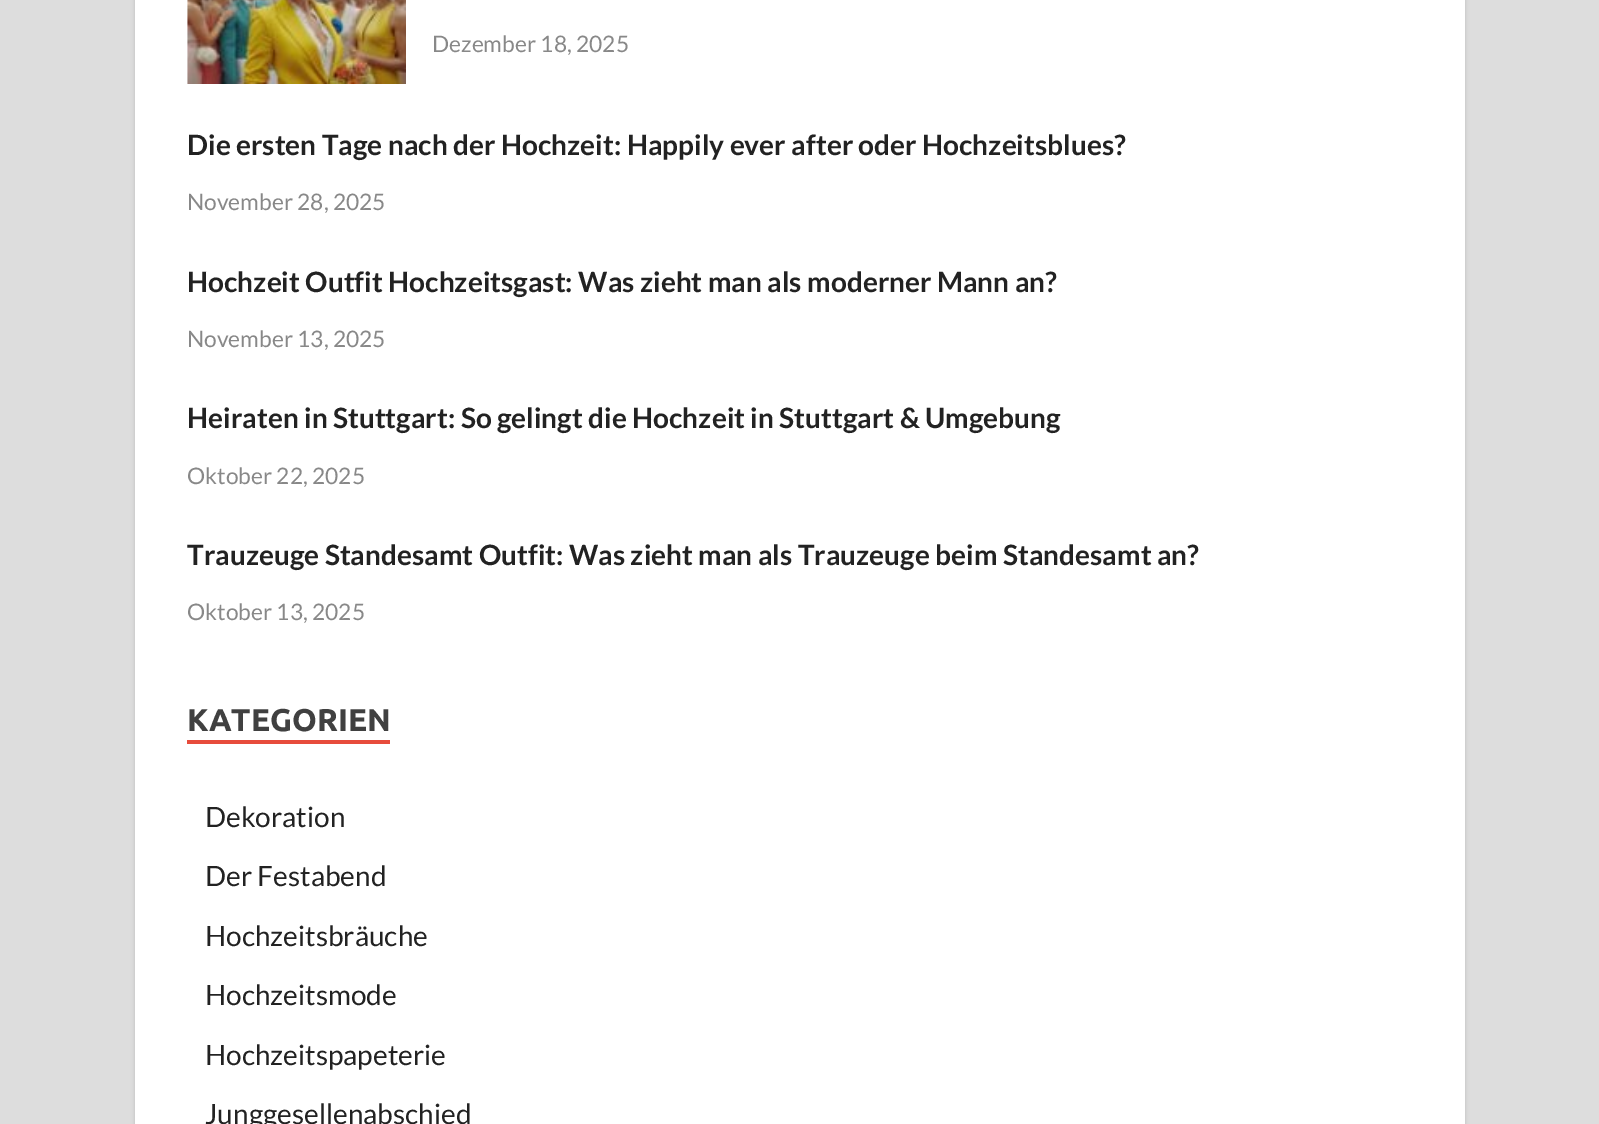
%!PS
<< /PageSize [1599 1124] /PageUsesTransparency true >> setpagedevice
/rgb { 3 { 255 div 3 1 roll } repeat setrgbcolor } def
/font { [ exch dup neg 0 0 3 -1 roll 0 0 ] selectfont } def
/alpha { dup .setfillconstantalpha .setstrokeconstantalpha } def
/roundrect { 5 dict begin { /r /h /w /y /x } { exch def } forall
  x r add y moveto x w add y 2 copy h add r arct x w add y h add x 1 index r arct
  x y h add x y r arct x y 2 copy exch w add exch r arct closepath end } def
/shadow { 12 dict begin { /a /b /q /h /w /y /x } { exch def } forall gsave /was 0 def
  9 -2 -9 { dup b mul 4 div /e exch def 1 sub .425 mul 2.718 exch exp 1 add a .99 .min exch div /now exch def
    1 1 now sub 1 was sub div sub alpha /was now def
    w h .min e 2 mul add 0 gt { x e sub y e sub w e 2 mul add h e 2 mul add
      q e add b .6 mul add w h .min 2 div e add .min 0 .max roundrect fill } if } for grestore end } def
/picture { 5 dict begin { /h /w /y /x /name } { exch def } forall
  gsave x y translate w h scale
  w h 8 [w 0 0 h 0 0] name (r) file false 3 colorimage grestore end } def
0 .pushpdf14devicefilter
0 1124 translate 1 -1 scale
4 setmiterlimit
221 221 221 rgb
0 0 1599 1124 rectfill
187 187 187 rgb
135 -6 1330 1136 0 2 1 shadow
255 255 255 rgb
135 0 1330 1124 rectfill
(img/1.rgb) 187 0 219 84 picture
231 76 60 rgb
187 740 203 4 rectfill
/Lato-Regular 22.75 font
136 136 136 rgb
432 52 moveto (Dezember 18, 2025) show
/Lato-Bold 28 font
34 34 34 rgb
187 155 moveto (Die ersten Tage nach der Hochzeit: Happily ever after oder Hochzeitsblues?) show
/Lato-Regular 22.75 font
136 136 136 rgb
187 210 moveto (November 28, 2025) show
/Lato-Bold 28 font
34 34 34 rgb
187 292 moveto (Hochzeit Outfit Hochzeitsgast: Was zieht man als moderner Mann an?) show
/Lato-Regular 22.75 font
136 136 136 rgb
187 347 moveto (November 13, 2025) show
/Lato-Bold 28 font
34 34 34 rgb
187 428 moveto (Heiraten in Stuttgart: So gelingt die Hochzeit in Stuttgart & Umgebung) show
/Lato-Regular 22.75 font
136 136 136 rgb
187 484 moveto (Oktober 22, 2025) show
/Lato-Bold 28 font
34 34 34 rgb
187 565 moveto (Trauzeuge Standesamt Outfit: Was zieht man als Trauzeuge beim Standesamt an?) show
/Lato-Regular 22.75 font
136 136 136 rgb
187 620 moveto (Oktober 13, 2025) show
/Ubuntu-Bold 31.5 font
64 64 64 rgb
187 731 moveto (KATEGORIEN) show
/Lato-Regular 28 font
34 34 34 rgb
[
  [(Dekoration) 205 827]
  [(Der Festabend) 205 886]
  [(Hochzeitsbräuche) 205 946]
  [(Hochzeitsmode) 205 1005]
  [(Hochzeitspapeterie) 205 1065]
  [(Junggesellenabschied) 205 1124]
] { aload pop moveto show } forall
.poppdf14devicefilter showpage
